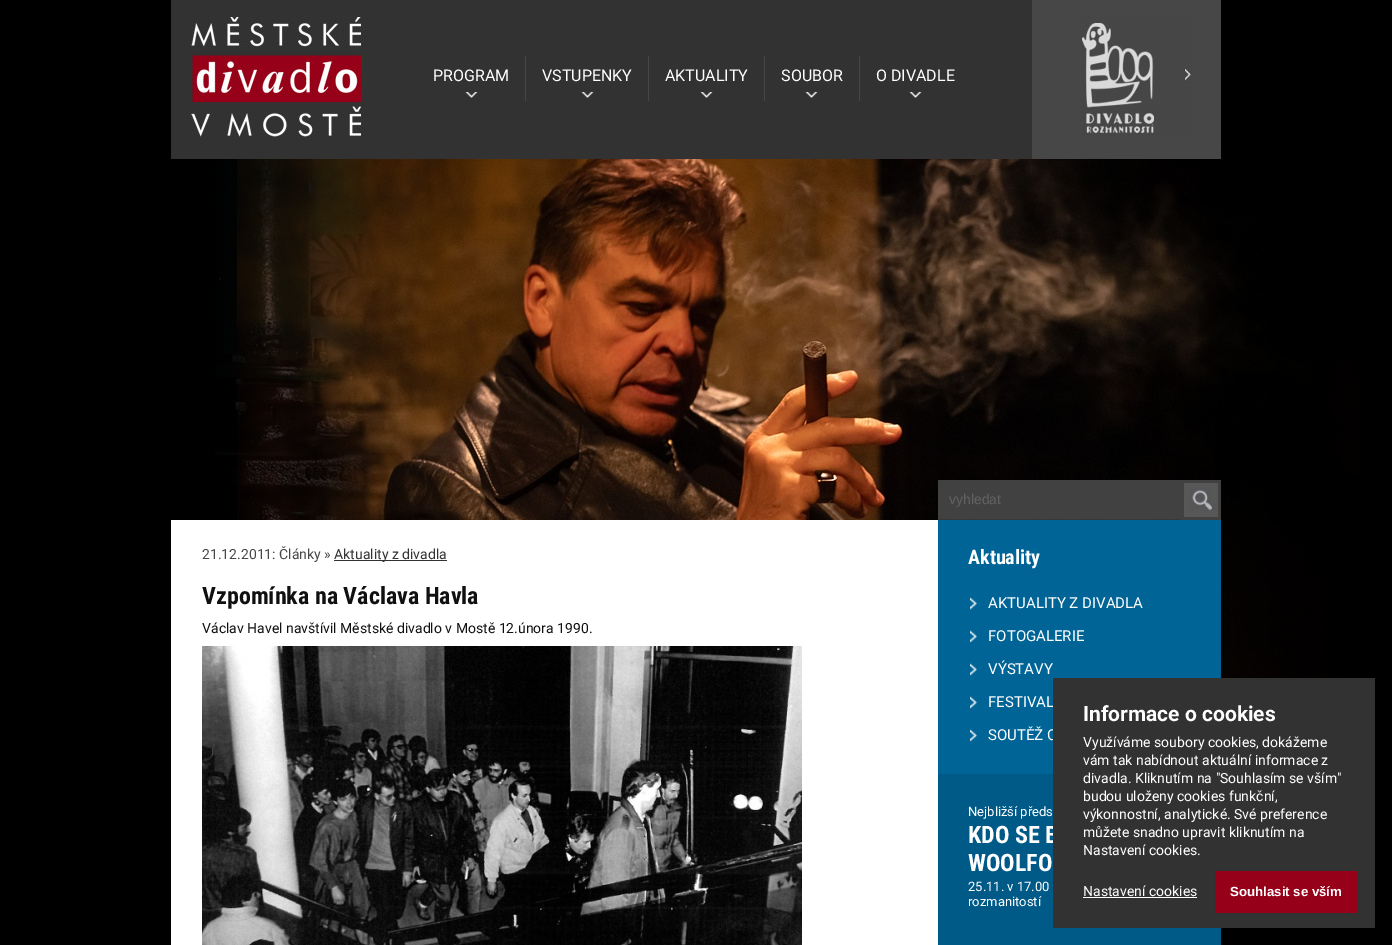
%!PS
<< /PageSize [1392 945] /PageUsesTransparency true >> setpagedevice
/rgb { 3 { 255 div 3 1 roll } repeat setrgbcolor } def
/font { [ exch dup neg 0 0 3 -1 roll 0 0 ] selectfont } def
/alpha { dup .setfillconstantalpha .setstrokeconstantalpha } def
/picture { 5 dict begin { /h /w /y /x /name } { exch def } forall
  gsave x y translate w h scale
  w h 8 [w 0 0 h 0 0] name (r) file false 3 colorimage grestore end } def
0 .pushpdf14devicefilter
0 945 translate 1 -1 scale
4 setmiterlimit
0 0 0 rgb
0 0 1392 945 rectfill
(img/1.rgb) 215 25 1145 653 picture
50 50 50 rgb
171 0 861 159 rectfill
(img/2.rgb) 190 16 176 125 picture
70 70 70 rgb
525 56 1 45 rectfill
(img/3.rgb) 465 92 13 6 picture
648 56 1 45 rectfill
(img/3.rgb) 581 92 13 6 picture
764 56 1 45 rectfill
(img/3.rgb) 700 92 13 6 picture
859 56 1 45 rectfill
(img/3.rgb) 805 92 13 6 picture
(img/3.rgb) 909 92 13 6 picture
71 71 71 rgb
1032 0 189 159 rectfill
(img/4.rgb) 1081 17 111 119 picture
255 255 255 rgb
171 520 767 425 rectfill
50 50 50 rgb
334 560 113 1 rectfill
(img/5.rgb) 202 646 600 299 picture
[
  [938 520 283 254 0 100 150]
] { aload pop rgb rectfill } forall
0.8 alpha
[
  [938 519 243 1 70 70 70]
] { aload pop rgb rectfill } forall
1 alpha
[
  [938 480 243 39 65 65 65]
  [1181 480 40 40 65 65 65]
] { aload pop rgb rectfill } forall
(img/6.rgb) 1184 483 34 34 picture
(img/7.rgb) 970 597 7 13 picture
(img/7.rgb) 970 630 7 13 picture
(img/7.rgb) 970 663 7 13 picture
(img/7.rgb) 970 696 7 13 picture
(img/7.rgb) 970 729 7 13 picture
0 90 135 rgb
938 774 283 171 rectfill
/Roboto-Regular 16 font
255 255 255 rgb
[
  [(PROGRAM) 433 81]
  [(VSTUPENKY) 542 81]
  [(AKTUALITY) 665 81]
  [(SOUBOR) 781 81]
  [(O DIVADLE) 876 81]
] { aload pop moveto show } forall
/Roboto-Regular 14 font
70 70 70 rgb
202 559 moveto (21.12.2011: Články ») show
50 50 50 rgb
334 559 moveto (Aktuality z divadla) show
/RobotoCondensed-Bold 24 font
16 16 16 rgb
202 604 moveto (Vzpomínka na Václava Havla) show
/Roboto-Regular 14 font
202 633 moveto (Václav Havel navštívil Městské divadlo v Mostě 12.února 1990.) show
/LiberationSans-Regular 14 font
98 98 98 rgb
949 504 moveto (vyhledat) show
/RobotoCondensed-Bold 20 font
255 255 255 rgb
968 564 moveto (Aktuality) show
/Roboto-Regular 15 font
[
  [(AKTUALITY Z DIVADLA) 988 608]
  [(FOTOGALERIE) 988 641]
  [(VÝSTAVY) 988 674]
  [(FESTIVAL) 988 707]
  [(SOUTĚŽ O) 988 740]
] { aload pop moveto show } forall
/Roboto-Regular 13 font
968 816 moveto (Nejbližší předs) show
/RobotoCondensed-Bold 24 font
968 843 moveto (KDO SE B) show
968 871 moveto (WOOLFO) show
/Roboto-Regular 13 font
968 891 moveto (25.11. v 17.00) show
968 906 moveto (rozmanitostí) show
50 50 50 rgb
1053 678 322 250 rectfill
/Roboto-Bold 21 font
255 255 255 rgb
1083 721 moveto (Informace o cookies) show
/Roboto-Regular 14 font
[
  [(Využíváme soubory cookies, dokážeme) 1083 747]
  [(vám tak nabídnout aktuální informace z) 1083 765]
  [(divadla. Kliknutím na "Souhlasím se vším") 1083 783]
  [(budou uloženy cookies funkční,) 1083 801]
  [(výkonnostní, analytické. Své preference) 1083 819]
  [(můžete snadno upravit kliknutím na) 1083 837]
  [(Nastavení cookies.) 1083 855]
  [(Nastavení cookies) 1083 896]
] { aload pop moveto show } forall
1083 897 114 1 rectfill
150 0 25 rgb
1215 871 142 42 rectfill
/LiberationSans-Bold 13.25 font
255 255 255 rgb
1230 896 moveto (Souhlasit se vším) show
.poppdf14devicefilter showpage
